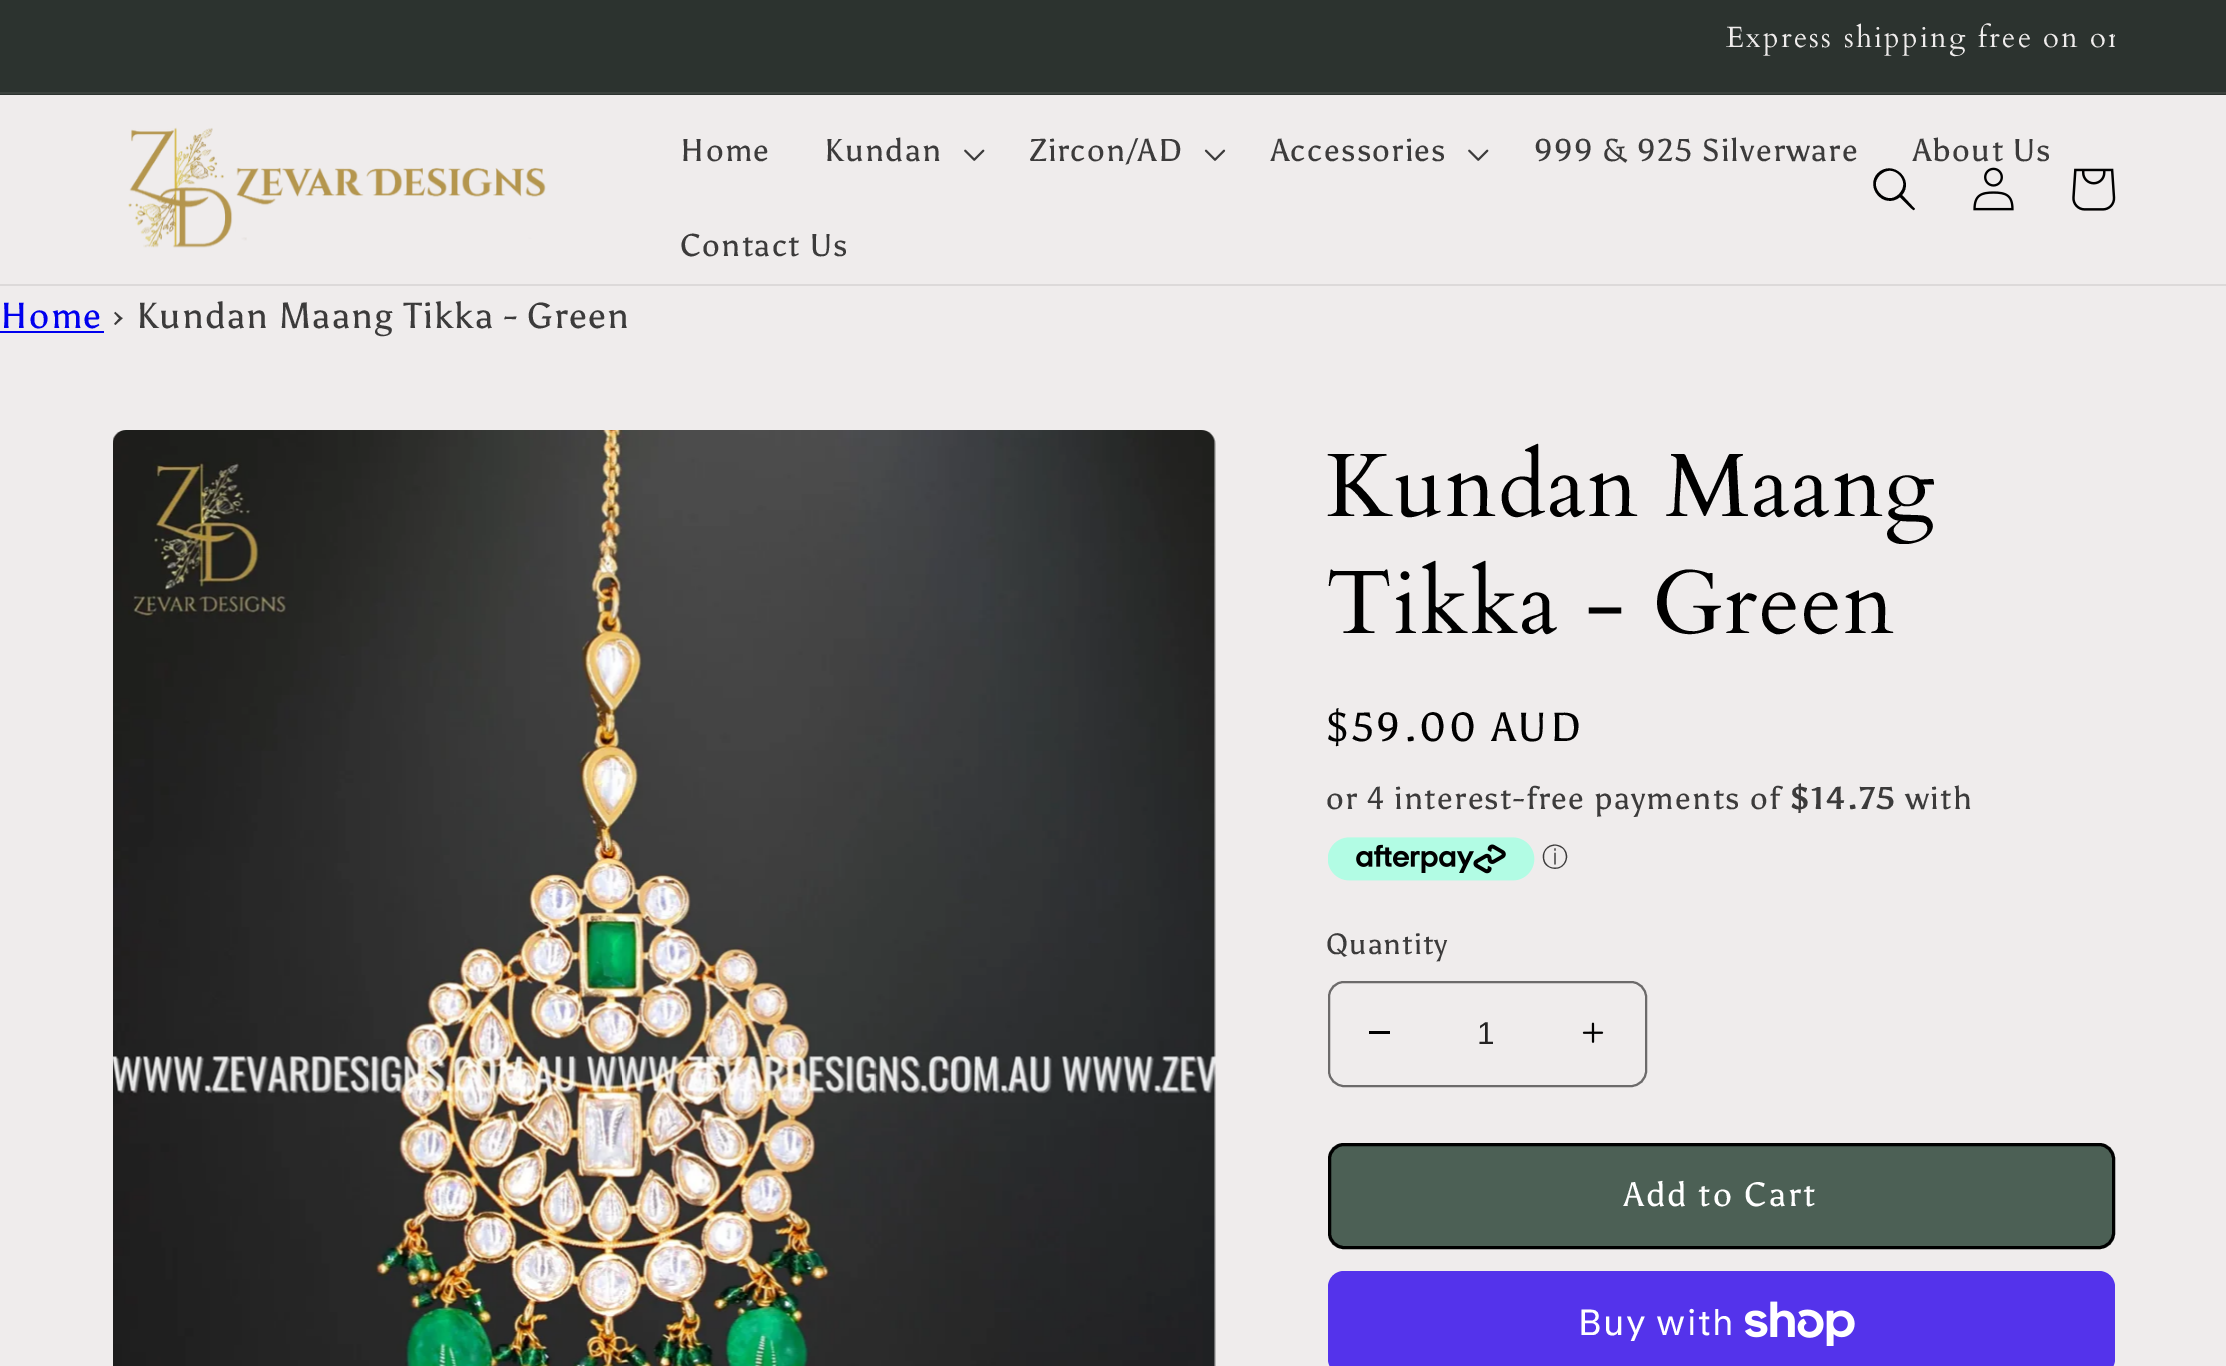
%!PS
<< /PageSize [2226 1366] >> setpagedevice
/rgb { 3 { 255 div 3 1 roll } repeat setrgbcolor } def
/font { [ exch dup neg 0 0 3 -1 roll 0 0 ] selectfont } def
/roundrect { 5 dict begin { /r /h /w /y /x } { exch def } forall
  x r add y moveto x w add y 2 copy h add r arct x w add y h add x 1 index r arct
  x y h add x y r arct x y 2 copy exch w add exch r arct closepath end } def
/picture { 5 dict begin { /h /w /y /x /name } { exch def } forall
  gsave x y translate w h scale
  w h 8 [w 0 0 h 0 0] name (r) file false 3 colorimage grestore end } def
0 1366 translate 1 -1 scale
4 setmiterlimit
239 236 236 rgb
0 0 2226 1366 rectfill
[
  [0 0 2226 95 44 51 47]
  [0 92 2226 2 60 66 62]
  [0 284 2226 2 220 217 217]
] { aload pop rgb rectfill } forall
(img/1.rgb) 128 127 418 121 picture
(img/2.rgb) 964 149 21 12 picture
(img/3.rgb) 1204 149 22 12 picture
(img/2.rgb) 1468 149 21 12 picture
0 0 0 rgb
1899 194 moveto 1887 207 1867 187 1880 175 curveto 1893 162 1912 181 1899 194 curveto closepath 1900 197 moveto 1884 210 1864 187 1878 173 curveto 1893 159 1915 180 1902 195 curveto 1915 209 lineto 1914 210 lineto 1913 211 1902 199 1900 197 curveto closepath eofill
(img/4.rgb) 1973 167 41 44 picture
(img/5.rgb) 2072 168 44 43 picture
0 0 238 rgb
0 331 104 2 rectfill
(img/6.rgb) 113 430 1103 936 picture
(img/7.rgb) 1328 837 207 44 picture
0 0 0 rgb
1369 1031 21 3 rectfill
(img/8.rgb) 1582 1022 22 21 picture
108 106 106 rgb
2 setlinewidth
1329 982 317 104 15 roundrect stroke
76 96 85 rgb
1328 1143 787 106 16 roundrect fill
239 236 236 rgb
1329 1144 785 104 15 roundrect stroke
0 0 0 rgb
3 setlinewidth
1329.5 1144.5 784 103 14.5 roundrect stroke
84 51 235 rgb
1328 1271 787 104 16 roundrect fill
(img/9.rgb) 1745 1301 110 45 picture
gsave
113 20 2002 39 rectclip
/Cardo-Regular 29.25 font
239 236 236 rgb
1726 47 moveto 2.25 0 (Express shipping free on or) ashow
grestore
/Asul-Regular 31.5 font
60 59 59 rgb
680 161 moveto 1.35 0 (Home) ashow
824 161 moveto 1.35 0 (Kundan) ashow
1030 161 moveto 1.35 0 (Zircon/AD) ashow
1271 161 moveto 1.35 0 (Accessories) ashow
1534 161 moveto 1.35 0 (999 & 925 Silverware) ashow
1913 161 moveto 1.35 0 (About Us) ashow
680 256 moveto 1.35 0 (Contact Us) ashow
/Asul-Regular 36 font
0 0 238 rgb
0 328 moveto 1.35 0 (Home) ashow
60 59 59 rgb
112 328 moveto 1.35 0 (› Kundan Maang Tikka - Green) ashow
/Cardo-Regular 90 font
0 0 0 rgb
1326 516 moveto 1.35 0 (Kundan Maang) ashow
1326 633 moveto 1.35 0 (Tikka - Green) ashow
/Asul-Regular 40.5 font
1326 741 moveto 3 0 ($59.00 AUD) ashow
/Asul-Regular 31.5 font
60 59 59 rgb
1326 809 moveto 1.35 0 (or 4 interest-free payments of) ashow
/Asul-Bold 31.5 font
1790 809 moveto 1.35 0 ($14.75) ashow
/Asul-Regular 31.5 font
1905 809 moveto 1.35 0 (with) ashow
/WenQuanYiZenHei-Medium 26 font
1542 866 moveto (ⓘ) show
/Asul-Regular 29.25 font
1326 954 moveto 1 0 (Quantity) ashow
/LiberationSans-Regular 31.5 font
36 35 35 rgb
1477 1044 moveto (1) show
/Asul-Regular 33.75 font
255 255 255 rgb
1624 1206 moveto 2.25 0 (Add to Cart) ashow
/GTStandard-Regular 36 font
1578 1335 moveto 1.35 0 (Buy with) ashow
showpage
